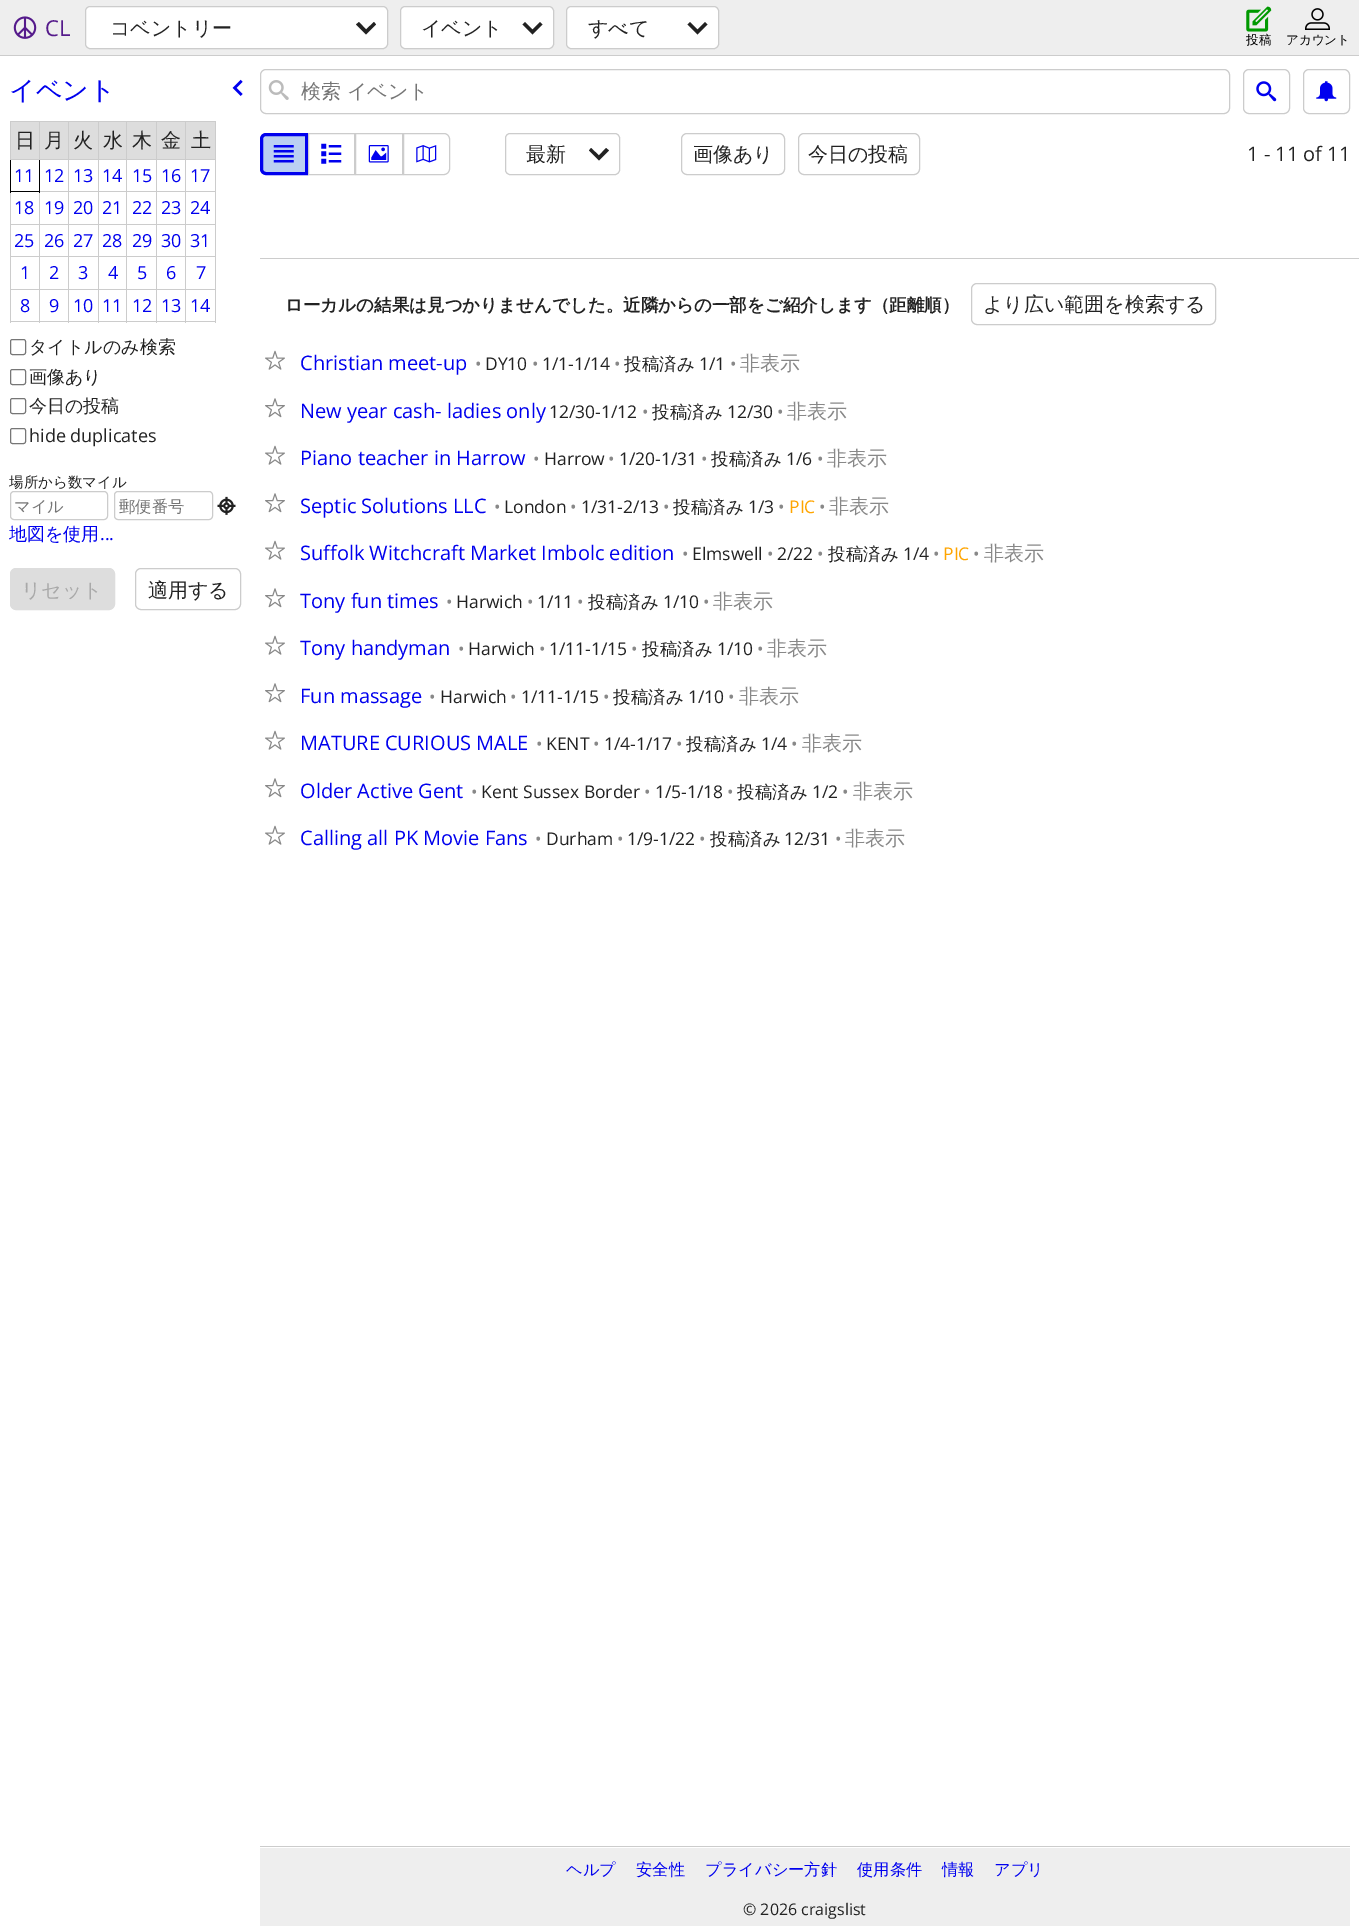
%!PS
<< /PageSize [1359 1926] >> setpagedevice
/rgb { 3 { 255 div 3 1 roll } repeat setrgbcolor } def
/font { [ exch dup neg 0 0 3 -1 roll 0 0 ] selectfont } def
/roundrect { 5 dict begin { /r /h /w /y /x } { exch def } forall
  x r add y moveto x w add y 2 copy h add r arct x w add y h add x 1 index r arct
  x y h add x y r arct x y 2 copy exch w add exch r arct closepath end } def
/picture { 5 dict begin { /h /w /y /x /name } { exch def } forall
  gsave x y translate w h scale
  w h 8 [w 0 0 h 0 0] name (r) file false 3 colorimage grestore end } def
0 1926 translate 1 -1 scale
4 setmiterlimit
255 255 255 rgb
0 0 1359 1926 rectfill
238 238 238 rgb
0 0 1359 55 rectfill
204 204 204 rgb
0 55 1359 1 rectfill
(img/1.rgb) 13 16 24 23 picture
255 255 255 rgb
85.5 6.5 302 42 4.5 roundrect gsave fill grestore
204 204 204 rgb
stroke
34 34 34 rgb
376 24.5 moveto 374 22 lineto 366 29.5 lineto 359 22 lineto 356 24.5 lineto 366 34.5 lineto closepath fill
255 255 255 rgb
400.5 6.5 153 42 4.5 roundrect gsave fill grestore
204 204 204 rgb
stroke
34 34 34 rgb
542.5 24.5 moveto 540 22 lineto 532.5 29.5 lineto 525 22 lineto 522.5 24.5 lineto 532.5 34.5 lineto closepath fill
255 255 255 rgb
566.5 6.5 152 42 4.5 roundrect gsave fill grestore
204 204 204 rgb
stroke
34 34 34 rgb
707.5 24.5 moveto 705 22 lineto 697.5 29.5 lineto 690 22 lineto 687.5 24.5 lineto 697.5 34.5 lineto closepath fill
(img/2.rgb) 1246 6 26 26 picture
(img/3.rgb) 1305 8 25 22 picture
(img/4.rgb) 232 79 11 17 picture
[
  [11 122 28 37 221 221 221]
  [185 121 31 1 204 204 204]
  [185 159 31 1 204 204 204]
  [185 191 31 1 204 204 204]
  [185 224 31 1 204 204 204]
  [185 256 31 1 204 204 204]
  [185 289 31 1 204 204 204]
  [215 289 1 34 204 204 204]
  [185 321 31 1 204 204 204]
  [185 289 1 34 204 204 204]
  [156 289 30 1 204 204 204]
  [185 256 1 34 204 204 204]
  [156 256 30 1 204 204 204]
  [185 224 1 34 204 204 204]
  [156 224 30 1 204 204 204]
  [185 191 1 34 204 204 204]
  [156 191 30 1 204 204 204]
  [185 159 1 34 204 204 204]
  [156 159 30 1 204 204 204]
  [185 121 1 39 204 204 204]
  [156 121 30 1 204 204 204]
  [156 321 30 1 204 204 204]
  [156 289 1 34 204 204 204]
  [126 289 32 1 204 204 204]
  [156 256 1 34 204 204 204]
  [126 256 32 1 204 204 204]
  [156 224 1 34 204 204 204]
  [126 224 32 1 204 204 204]
  [156 191 1 34 204 204 204]
  [126 191 32 1 204 204 204]
  [156 159 1 34 204 204 204]
  [126 159 32 1 204 204 204]
  [156 121 1 39 204 204 204]
  [126 121 32 1 204 204 204]
  [99 122 57 37 221 221 221]
  [126 321 32 1 204 204 204]
  [126 289 1 34 204 204 204]
  [98 289 30 1 204 204 204]
  [126 256 1 34 204 204 204]
  [98 256 30 1 204 204 204]
  [126 224 1 34 204 204 204]
  [98 224 30 1 204 204 204]
  [126 191 1 34 204 204 204]
  [98 191 30 1 204 204 204]
  [126 159 1 34 204 204 204]
  [98 159 30 1 204 204 204]
  [126 121 1 39 204 204 204]
  [98 121 30 1 204 204 204]
  [98 321 30 1 204 204 204]
  [98 289 1 34 204 204 204]
  [68 289 31 1 204 204 204]
  [98 256 1 34 204 204 204]
  [68 256 31 1 204 204 204]
  [98 224 1 34 204 204 204]
  [68 224 31 1 204 204 204]
  [98 191 1 34 204 204 204]
  [68 191 31 1 204 204 204]
  [98 159 1 34 204 204 204]
  [68 159 31 1 204 204 204]
  [98 121 1 39 204 204 204]
  [68 121 31 1 204 204 204]
  [68 321 31 1 204 204 204]
  [68 289 1 34 204 204 204]
  [39 289 30 1 204 204 204]
  [68 256 1 34 204 204 204]
  [39 256 30 1 204 204 204]
  [68 224 1 34 204 204 204]
  [39 224 30 1 204 204 204]
  [68 191 1 34 204 204 204]
  [39 191 30 1 204 204 204]
  [68 159 1 34 204 204 204]
  [68 121 1 39 204 204 204]
  [39 121 30 1 204 204 204]
  [39 321 30 1 204 204 204]
  [39 289 1 34 204 204 204]
  [10 289 30 1 204 204 204]
  [39 256 1 34 204 204 204]
  [10 256 30 1 204 204 204]
  [39 224 1 34 204 204 204]
  [10 224 30 1 204 204 204]
  [39 191 1 34 204 204 204]
  [39 159 1 34 0 0 0]
  [39 159 30 1 204 204 204]
  [39 121 1 39 204 204 204]
  [10 121 30 1 204 204 204]
  [10 321 30 1 204 204 204]
  [10 289 1 34 204 204 204]
  [10 256 1 34 204 204 204]
  [10 191 1 67 204 204 204]
  [10 191 30 1 0 0 0]
  [10 159 1 34 0 0 0]
  [10 159 30 1 204 204 204]
  [10 121 1 39 204 204 204]
  [40 122 28 37 221 221 221]
  [69 122 29 37 221 221 221]
  [157 122 28 37 221 221 221]
  [186 122 29 37 221 221 221]
  [215 256 1 34 204 204 204]
  [215 224 1 34 204 204 204]
  [215 191 1 34 204 204 204]
  [215 159 1 34 204 204 204]
  [215 121 1 39 204 204 204]
] { aload pop rgb rectfill } forall
118 118 118 rgb
10.5 339.5 15 15 2 roundrect stroke
10.5 369.5 15 15 2 roundrect stroke
10.5 398.5 15 15 2 roundrect stroke
10.5 428.5 15 15 2 roundrect stroke
204 204 204 rgb
10.5 491.5 97 28 3.5 roundrect stroke
114.5 491.5 98 28 3.5 roundrect stroke
(img/5.rgb) 217 496 19 19 picture
221 221 221 rgb
10.5 568.5 104 41 5.5 roundrect gsave fill grestore
stroke
204 204 204 rgb
135.5 568.5 105 41 5.5 roundrect stroke
260.5 69.5 969 44 5.5 roundrect stroke
(img/6.rgb) 268 80 21 20 picture
1243.5 69.5 46 44 5.5 roundrect stroke
(img/7.rgb) 1256 81 21 21 picture
1303.5 69.5 46 44 5.5 roundrect stroke
(img/8.rgb) 1316 81 21 21 picture
186 207 242 rgb
266 134.5 moveto 306.5 134.5 lineto 306.5 173.5 lineto 266 173.5 lineto 263.5 173.5 261.5 171.5 261.5 169 curveto 261.5 139 lineto 261.5 136.5 263.5 134.5 266 134.5 curveto closepath gsave fill grestore
0 0 238 rgb
3 setlinewidth
stroke
(img/9.rgb) 273 145 21 18 picture
204 204 204 rgb
1 setlinewidth
308.5 133.5 46 41 rectstroke
(img/10.rgb) 321 143 21 21 picture
355.5 133.5 47 41 rectstroke
(img/11.rgb) 368 145 21 18 picture
403.5 133.5 moveto 444 133.5 lineto 447 133.5 449.5 136 449.5 139 curveto 449.5 169 lineto 449.5 172 447 174.5 444 174.5 curveto 403.5 174.5 lineto closepath stroke
(img/12.rgb) 416 145 21 18 picture
505.5 133.5 114 41 4.5 roundrect stroke
34 34 34 rgb
609 150.5 moveto 606 148 lineto 599 155.5 lineto 591 148 lineto 589 150.5 lineto 599 160.5 lineto closepath fill
204 204 204 rgb
681.5 133.5 103 41 5.5 roundrect stroke
798.5 133.5 121 41 5.5 roundrect stroke
260 258 1099 1 rectfill
971.5 283.5 244 41 5.5 roundrect stroke
(img/13.rgb) 265 350 20 20 picture
(img/14.rgb) 265 398 20 20 picture
(img/13.rgb) 265 445 20 20 picture
(img/14.rgb) 265 493 20 20 picture
(img/13.rgb) 265 540 20 20 picture
(img/14.rgb) 265 588 20 20 picture
(img/13.rgb) 265 635 20 20 picture
(img/14.rgb) 265 683 20 20 picture
(img/13.rgb) 265 730 20 20 picture
(img/14.rgb) 265 778 20 20 picture
(img/13.rgb) 265 825 20 20 picture
238 238 238 rgb
260 1848 1090 78 rectfill
204 204 204 rgb
260 1846 1090 1 rectfill
/OpenSans-Regular 22 font
85 26 139 rgb
45 36 moveto (CL) show
/WenQuanYiZenHei-Medium 20 font
34 34 34 rgb
[
  [(コベントリー) 110 35]
  [(イベント) 421 35]
  [(すべて) 588 35]
] { aload pop moveto show } forall
/WenQuanYiZenHei-Medium 12.5 font
0 0 0 rgb
1246 44 moveto (投稿) show
1286 44 moveto (アカウント) show
/WenQuanYiZenHei-Medium 26 font
0 0 238 rgb
9 99 moveto (イベント) show
/WenQuanYiZenHei-Medium 20 font
34 34 34 rgb
[
  [(日) 15 147]
  [(月) 44 147]
  [(火) 73 147]
  [(水) 103 147]
  [(木) 132 147]
  [(金) 161 147]
  [(土) 191 147]
] { aload pop moveto show } forall
/OpenSans-Regular 18 font
0 0 238 rgb
[
  [(11) 14 182]
  [(12) 44 182]
  [(13) 73 182]
  [(14) 102 182]
  [(15) 132 182]
  [(16) 161 182]
  [(17) 190 182]
  [(18) 14 214]
  [(19) 44 214]
  [(20) 73 214]
  [(21) 102 214]
  [(22) 132 214]
  [(23) 161 214]
  [(24) 190 214]
  [(25) 14 247]
  [(26) 44 247]
  [(27) 73 247]
  [(28) 102 247]
  [(29) 132 247]
  [(30) 161 247]
  [(31) 190 247]
  [(1) 20 279]
  [(2) 49 279]
  [(3) 78 279]
  [(4) 108 279]
  [(5) 137 279]
  [(6) 166 279]
  [(7) 196 279]
  [(8) 20 312]
  [(9) 49 312]
  [(10) 73 312]
  [(11) 102 312]
  [(12) 132 312]
  [(13) 161 312]
  [(14) 190 312]
] { aload pop moveto show } forall
/WenQuanYiZenHei-Medium 18 font
34 34 34 rgb
[
  [(タイトルのみ検索) 29 353]
  [(画像あり) 29 383]
  [(今日の投稿) 29 412]
] { aload pop moveto show } forall
/OpenSans-Regular 18 font
29 442 moveto (hide duplicates) show
/WenQuanYiZenHei-Medium 14.5 font
9 487 moveto (場所から数マイル) show
/WenQuanYiZenHei-Medium 16.25 font
117 117 117 rgb
14 512 moveto (マイル) show
119 512 moveto (郵便番号) show
/WenQuanYiZenHei-Medium 18 font
0 0 238 rgb
9 540 moveto (地図を使用) show
/OpenSans-Regular 18 font
100 540 moveto (...) show
/WenQuanYiZenHei-Medium 20 font
169 169 169 rgb
21 597 moveto (リセット) show
34 34 34 rgb
148 597 moveto (適用する) show
117 117 117 rgb
301 98 moveto (検索 イベント) show
34 34 34 rgb
[
  [(最新) 526 161]
  [(画像あり) 693 161]
  [(今日の投稿) 808 161]
] { aload pop moveto show } forall
/OpenSans-Regular 20 font
1247 161 moveto (1 - 11 of 11) show
/WenQuanYiZenHei-Bold 17.5 font
285 311 moveto (ローカルの結果は見つかりませんでした。近隣からの一部をご紹介します（距離順）) show
/WenQuanYiZenHei-Medium 20 font
983 311 moveto (より広い範囲を検索する) show
/OpenSans-Regular 20 font
0 0 238 rgb
300 370 moveto (Christian meet-up) show
/OpenSans-Regular 17.5 font
136 136 136 rgb
475 370 moveto (•) show
34 34 34 rgb
485 370 moveto (DY10) show
136 136 136 rgb
532 370 moveto (•) show
34 34 34 rgb
542 370 moveto (1/1-1/14) show
136 136 136 rgb
614 370 moveto (•) show
/WenQuanYiZenHei-Medium 17.5 font
34 34 34 rgb
624 370 moveto (投稿済み) show
/OpenSans-Regular 17.5 font
699 370 moveto (1/1) show
136 136 136 rgb
730 370 moveto (•) show
/WenQuanYiZenHei-Medium 20 font
740 370 moveto (非表示) show
/OpenSans-Regular 20 font
0 0 238 rgb
300 418 moveto (New year cash- ladies only) show
/OpenSans-Regular 17.5 font
34 34 34 rgb
549 418 moveto (12/30-1/12) show
136 136 136 rgb
642 418 moveto (•) show
/WenQuanYiZenHei-Medium 17.5 font
34 34 34 rgb
652 418 moveto (投稿済み) show
/OpenSans-Regular 17.5 font
727 418 moveto (12/30) show
136 136 136 rgb
777 418 moveto (•) show
/WenQuanYiZenHei-Medium 20 font
787 418 moveto (非表示) show
/OpenSans-Regular 20 font
0 0 238 rgb
300 465 moveto (Piano teacher in Harrow) show
/OpenSans-Regular 17.5 font
136 136 136 rgb
533 465 moveto (•) show
34 34 34 rgb
544 465 moveto (Harrow) show
136 136 136 rgb
608 465 moveto (•) show
34 34 34 rgb
619 465 moveto (1/20-1/31) show
136 136 136 rgb
701 465 moveto (•) show
/WenQuanYiZenHei-Medium 17.5 font
34 34 34 rgb
711 465 moveto (投稿済み) show
/OpenSans-Regular 17.5 font
786 465 moveto (1/6) show
136 136 136 rgb
817 465 moveto (•) show
/WenQuanYiZenHei-Medium 20 font
827 465 moveto (非表示) show
/OpenSans-Regular 20 font
0 0 238 rgb
300 513 moveto (Septic Solutions LLC) show
/OpenSans-Regular 17.5 font
136 136 136 rgb
494 513 moveto (•) show
34 34 34 rgb
504 513 moveto (London) show
136 136 136 rgb
570 513 moveto (•) show
34 34 34 rgb
581 513 moveto (1/31-2/13) show
136 136 136 rgb
663 513 moveto (•) show
/WenQuanYiZenHei-Medium 17.5 font
34 34 34 rgb
673 513 moveto (投稿済み) show
/OpenSans-Regular 17.5 font
748 513 moveto (1/3) show
136 136 136 rgb
778 513 moveto (•) show
255 165 0 rgb
789 513 moveto (PIC) show
136 136 136 rgb
819 513 moveto (•) show
/WenQuanYiZenHei-Medium 20 font
829 513 moveto (非表示) show
/OpenSans-Regular 20 font
0 0 238 rgb
300 560 moveto (Suffolk Witchcraft Market Imbolc edition) show
/OpenSans-Regular 17.5 font
136 136 136 rgb
682 560 moveto (•) show
34 34 34 rgb
692 560 moveto (Elmswell) show
136 136 136 rgb
767 560 moveto (•) show
34 34 34 rgb
777 560 moveto (2/22) show
136 136 136 rgb
817 560 moveto (•) show
/WenQuanYiZenHei-Medium 17.5 font
34 34 34 rgb
828 560 moveto (投稿済み) show
/OpenSans-Regular 17.5 font
903 560 moveto (1/4) show
136 136 136 rgb
933 560 moveto (•) show
255 165 0 rgb
943 560 moveto (PIC) show
136 136 136 rgb
973 560 moveto (•) show
/WenQuanYiZenHei-Medium 20 font
984 560 moveto (非表示) show
/OpenSans-Regular 20 font
0 0 238 rgb
300 608 moveto (Tony fun times) show
/OpenSans-Regular 17.5 font
136 136 136 rgb
446 608 moveto (•) show
34 34 34 rgb
456 608 moveto (Harwich) show
136 136 136 rgb
527 608 moveto (•) show
34 34 34 rgb
537 608 moveto (1/11) show
136 136 136 rgb
577 608 moveto (•) show
/WenQuanYiZenHei-Medium 17.5 font
34 34 34 rgb
588 608 moveto (投稿済み) show
/OpenSans-Regular 17.5 font
663 608 moveto (1/10) show
136 136 136 rgb
703 608 moveto (•) show
/WenQuanYiZenHei-Medium 20 font
713 608 moveto (非表示) show
/OpenSans-Regular 20 font
0 0 238 rgb
300 655 moveto (Tony handyman) show
/OpenSans-Regular 17.5 font
136 136 136 rgb
458 655 moveto (•) show
34 34 34 rgb
468 655 moveto (Harwich) show
136 136 136 rgb
539 655 moveto (•) show
34 34 34 rgb
549 655 moveto (1/11-1/15) show
136 136 136 rgb
631 655 moveto (•) show
/WenQuanYiZenHei-Medium 17.5 font
34 34 34 rgb
642 655 moveto (投稿済み) show
/OpenSans-Regular 17.5 font
717 655 moveto (1/10) show
136 136 136 rgb
757 655 moveto (•) show
/WenQuanYiZenHei-Medium 20 font
767 655 moveto (非表示) show
/OpenSans-Regular 20 font
0 0 238 rgb
300 703 moveto (Fun massage) show
/OpenSans-Regular 17.5 font
136 136 136 rgb
429 703 moveto (•) show
34 34 34 rgb
440 703 moveto (Harwich) show
136 136 136 rgb
510 703 moveto (•) show
34 34 34 rgb
521 703 moveto (1/11-1/15) show
136 136 136 rgb
603 703 moveto (•) show
/WenQuanYiZenHei-Medium 17.5 font
34 34 34 rgb
613 703 moveto (投稿済み) show
/OpenSans-Regular 17.5 font
688 703 moveto (1/10) show
136 136 136 rgb
728 703 moveto (•) show
/WenQuanYiZenHei-Medium 20 font
739 703 moveto (非表示) show
/OpenSans-Regular 20 font
0 0 238 rgb
300 750 moveto (MATURE CURIOUS MALE) show
/OpenSans-Regular 17.5 font
136 136 136 rgb
536 750 moveto (•) show
34 34 34 rgb
546 750 moveto (KENT) show
136 136 136 rgb
593 750 moveto (•) show
34 34 34 rgb
604 750 moveto (1/4-1/17) show
136 136 136 rgb
676 750 moveto (•) show
/WenQuanYiZenHei-Medium 17.5 font
34 34 34 rgb
686 750 moveto (投稿済み) show
/OpenSans-Regular 17.5 font
761 750 moveto (1/4) show
136 136 136 rgb
791 750 moveto (•) show
/WenQuanYiZenHei-Medium 20 font
802 750 moveto (非表示) show
/OpenSans-Regular 20 font
0 0 238 rgb
300 798 moveto (Older Active Gent) show
/OpenSans-Regular 17.5 font
136 136 136 rgb
471 798 moveto (•) show
34 34 34 rgb
481 798 moveto (Kent Sussex Border) show
136 136 136 rgb
644 798 moveto (•) show
34 34 34 rgb
655 798 moveto (1/5-1/18) show
136 136 136 rgb
727 798 moveto (•) show
/WenQuanYiZenHei-Medium 17.5 font
34 34 34 rgb
737 798 moveto (投稿済み) show
/OpenSans-Regular 17.5 font
812 798 moveto (1/2) show
136 136 136 rgb
842 798 moveto (•) show
/WenQuanYiZenHei-Medium 20 font
853 798 moveto (非表示) show
/OpenSans-Regular 20 font
0 0 238 rgb
300 845 moveto (Calling all PK Movie Fans) show
/OpenSans-Regular 17.5 font
136 136 136 rgb
535 845 moveto (•) show
34 34 34 rgb
546 845 moveto (Durham) show
136 136 136 rgb
617 845 moveto (•) show
34 34 34 rgb
627 845 moveto (1/9-1/22) show
136 136 136 rgb
699 845 moveto (•) show
/WenQuanYiZenHei-Medium 17.5 font
34 34 34 rgb
710 845 moveto (投稿済み) show
/OpenSans-Regular 17.5 font
784 845 moveto (12/31) show
136 136 136 rgb
835 845 moveto (•) show
/WenQuanYiZenHei-Medium 20 font
845 845 moveto (非表示) show
/WenQuanYiZenHei-Medium 16.25 font
0 0 238 rgb
[
  [(ヘルプ) 566 1875]
  [(安全性) 636 1875]
  [(プライバシー方針) 705 1875]
  [(使用条件) 857 1875]
  [(情報) 942 1875]
  [(アプリ) 994 1875]
] { aload pop moveto show } forall
/OpenSans-Regular 16 font
34 34 34 rgb
743 1915 moveto (© 2026 craigslist) show
showpage
